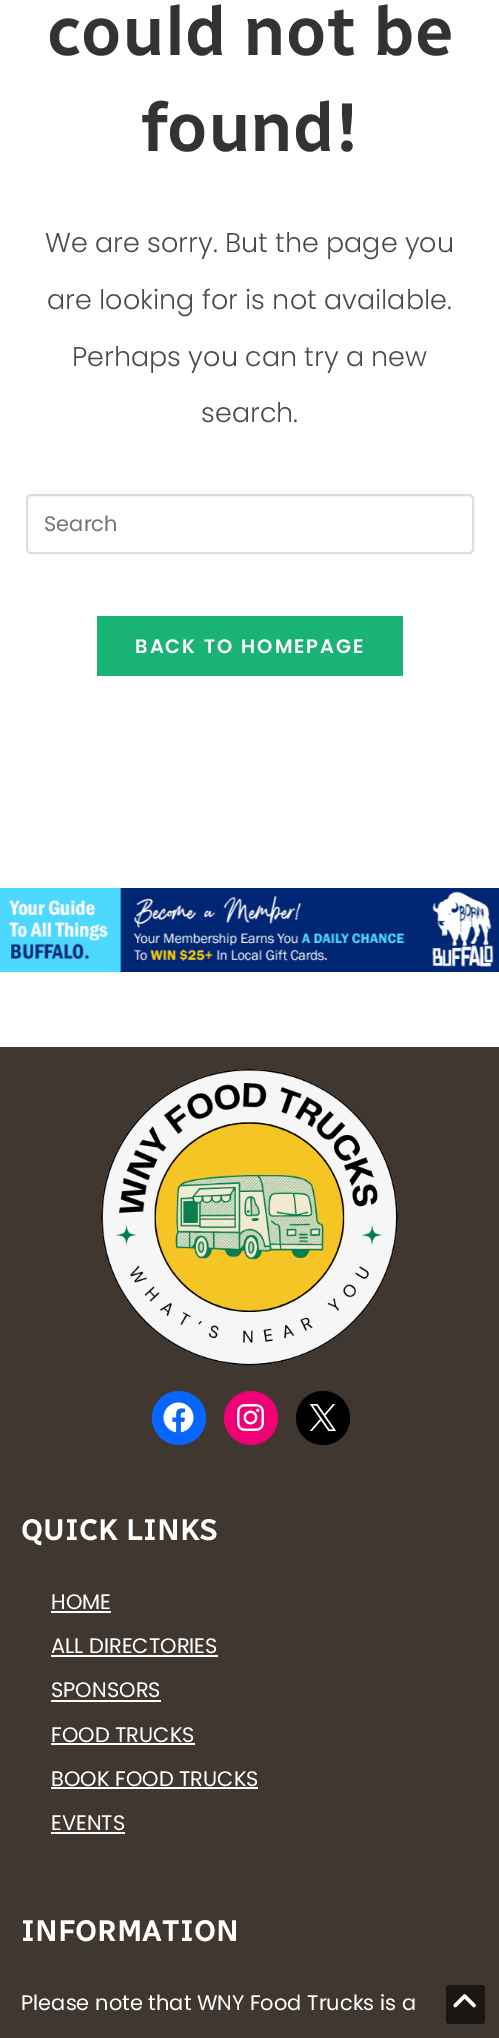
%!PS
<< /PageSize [499 2038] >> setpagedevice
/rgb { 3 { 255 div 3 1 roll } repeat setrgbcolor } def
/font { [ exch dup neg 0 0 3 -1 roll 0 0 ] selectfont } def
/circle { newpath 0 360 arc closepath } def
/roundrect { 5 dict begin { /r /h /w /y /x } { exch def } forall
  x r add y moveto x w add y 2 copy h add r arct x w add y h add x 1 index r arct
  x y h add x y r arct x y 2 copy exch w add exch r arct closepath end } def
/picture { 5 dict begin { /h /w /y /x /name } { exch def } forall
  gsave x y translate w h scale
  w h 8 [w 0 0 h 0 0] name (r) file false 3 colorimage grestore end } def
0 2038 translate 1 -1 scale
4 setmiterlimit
255 255 255 rgb
0 0 499 2038 rectfill
221 221 221 rgb
2 setlinewidth
27 495 446 58 4 roundrect stroke
25 179 117 rgb
97 616 306 60 rectfill
(img/1.rgb) 0 888 499 84 picture
63 55 48 rgb
0 1047 499 991 rectfill
(img/2.rgb) 101 1069 297 297 picture
8 102 255 rgb
179 1418 27 circle fill
(img/3.rgb) 163 1402 31 31 picture
240 0 117 rgb
251 1418 27 circle fill
(img/4.rgb) 237 1404 27 27 picture
0 0 0 rgb
323 1418 27 circle fill
(img/5.rgb) 309 1404 28 27 picture
[
  [51 1611 60 2 255 255 255]
  [51 1655 167 2 255 255 255]
  [51 1700 110 2 255 255 255]
  [51 1743 144 2 255 255 255]
  [51 1787 207 2 255 255 255]
  [51 1832 74 2 255 255 255]
] { aload pop rgb rectfill } forall
25 22 19 rgb
446 1985 39 39 3 roundrect fill
(img/6.rgb) 453 1994 23 14 picture
/RadioCanada-SemiBold 69 font
51 51 51 rgb
47 55 moveto (could not be) show
141 151 moveto (found!) show
/Poppins-Light 27 font
74 74 74 rgb
[
  [(We are sorry. But the page you) 45 252]
  [(are looking for is not available.) 47 309]
  [(Perhaps you can try a new) 72 366]
  [(search.) 201 422]
] { aload pop moveto show } forall
/Poppins-Regular 21 font
117 117 117 rgb
44 531 moveto (Search) show
/Poppins-SemiBold 19.5 font
255 255 255 rgb
135 653 moveto 2 0 (BACK TO HOMEPAGE) ashow
/RadioCanada-SemiBold 30 font
21 1540 moveto (QUICK LINKS) show
/Poppins-Regular 21 font
[
  [(HOME) 51 1609]
  [(ALL DIRECTORIES) 51 1653]
  [(SPONSORS) 51 1697]
  [(FOOD TRUCKS) 51 1742]
  [(BOOK FOOD TRUCKS) 51 1786]
  [(EVENTS) 51 1830]
] { aload pop moveto show } forall
/RadioCanada-SemiBold 30 font
21 1941 moveto (INFORMATION) show
/Poppins-Regular 21 font
21 2010 moveto (Please note that WNY Food Trucks is a) show
showpage
